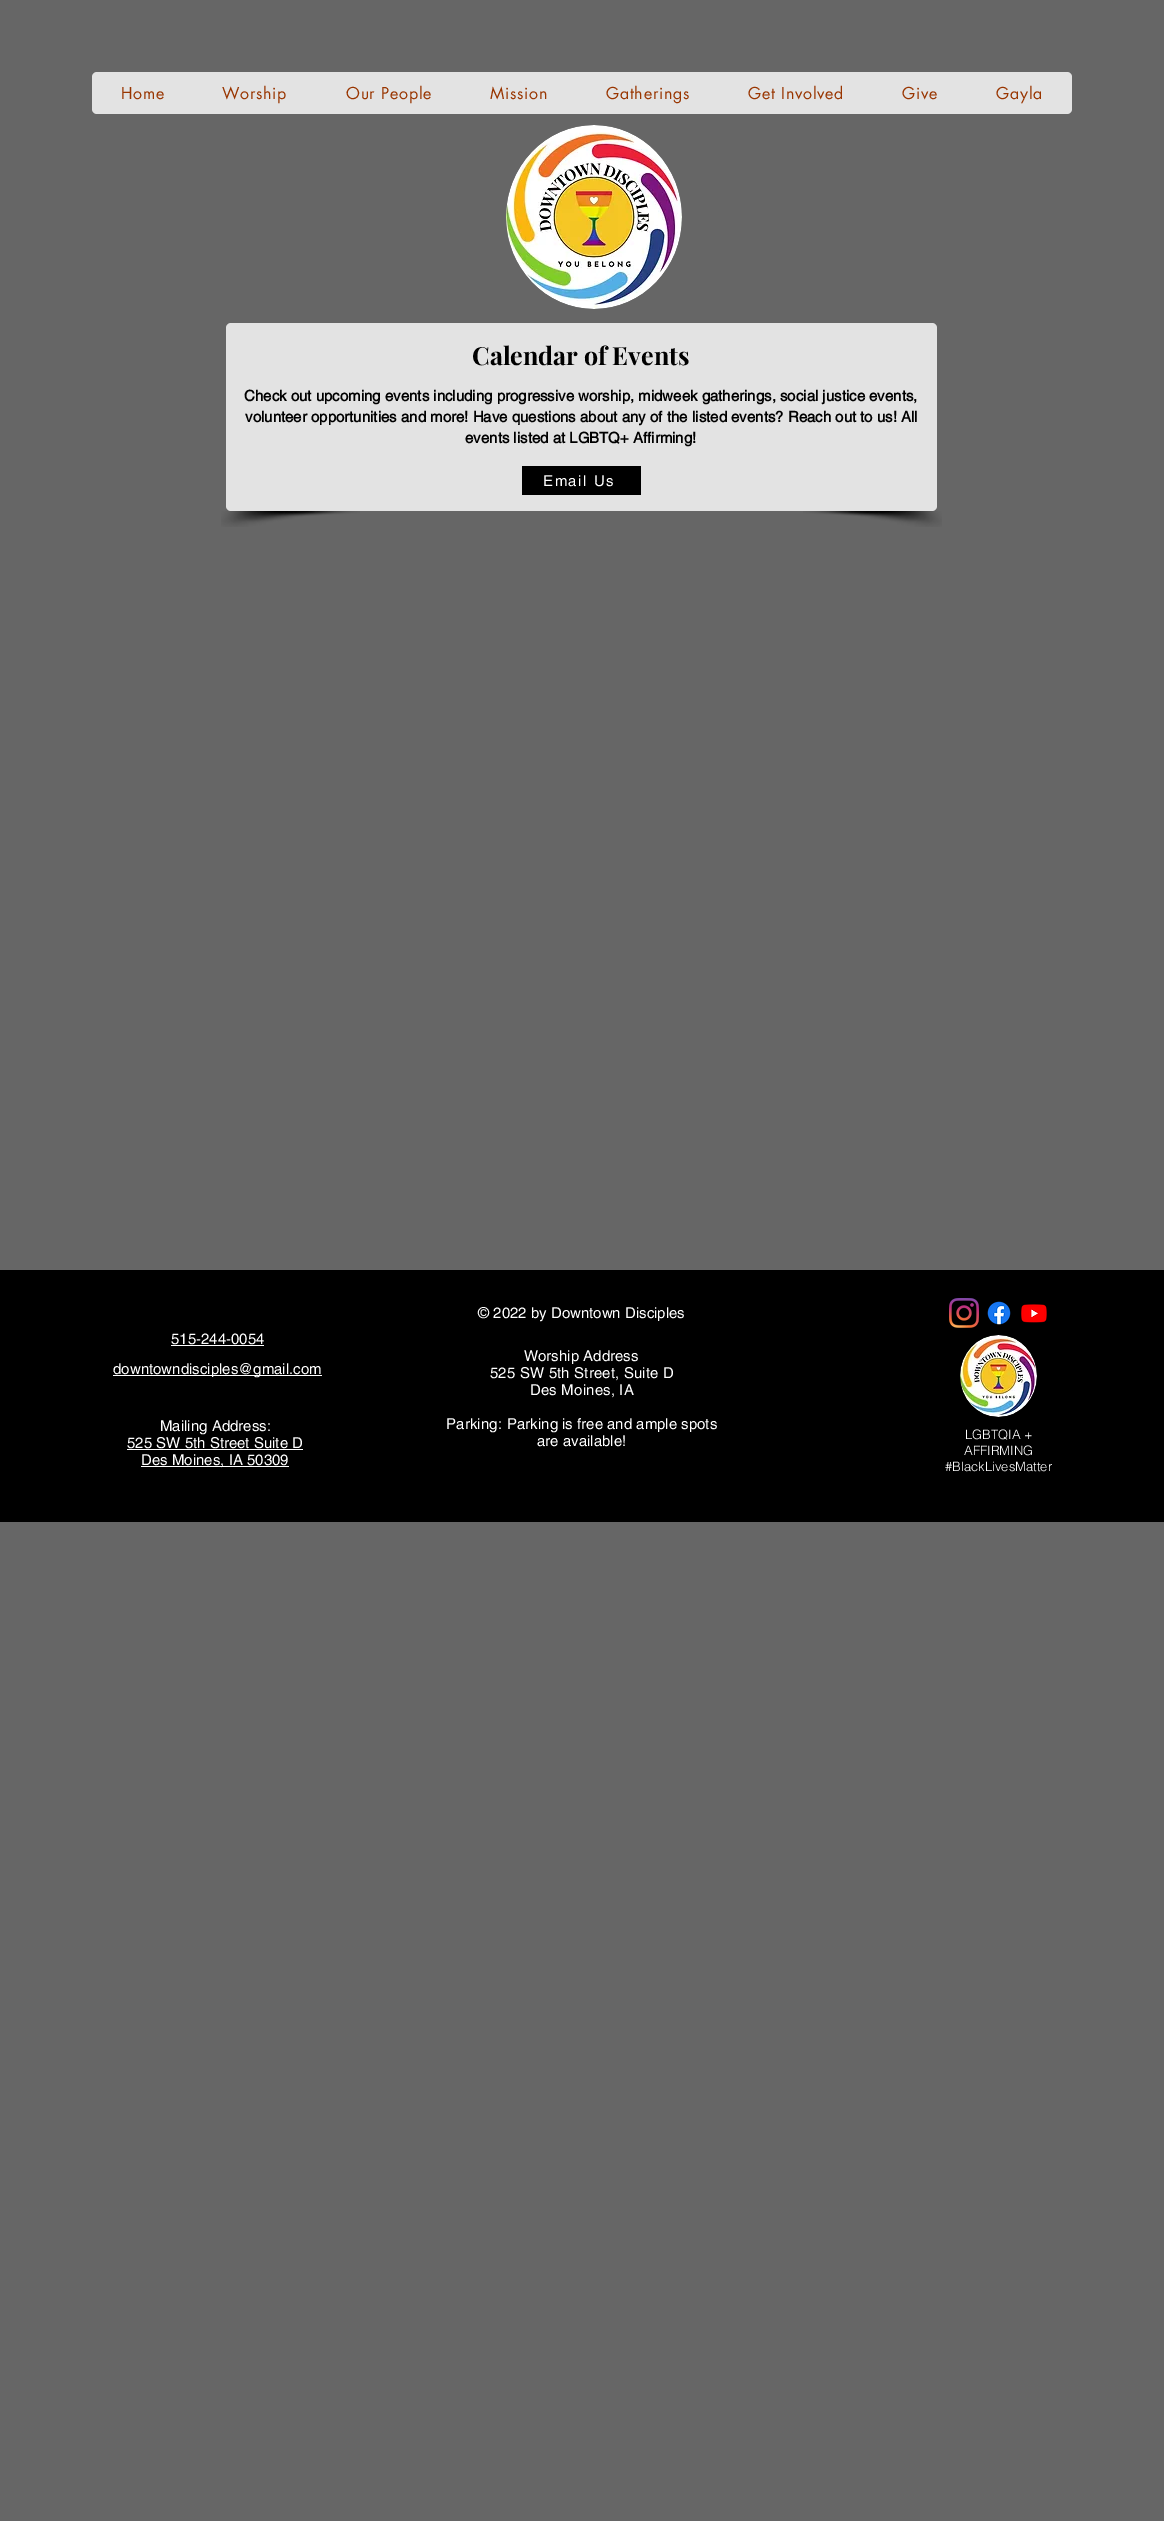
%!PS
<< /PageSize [1164 2521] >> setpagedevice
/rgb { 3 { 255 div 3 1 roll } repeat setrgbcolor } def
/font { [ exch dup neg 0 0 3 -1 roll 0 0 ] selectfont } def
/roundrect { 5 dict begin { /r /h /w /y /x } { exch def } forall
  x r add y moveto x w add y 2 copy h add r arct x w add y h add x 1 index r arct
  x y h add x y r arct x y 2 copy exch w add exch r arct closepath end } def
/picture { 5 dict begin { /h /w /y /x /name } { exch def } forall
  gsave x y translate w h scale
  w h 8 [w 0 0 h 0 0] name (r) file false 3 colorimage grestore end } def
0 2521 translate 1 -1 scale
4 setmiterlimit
102 102 102 rgb
0 0 1164 2521 rectfill
227 227 227 rgb
92 72 980 42 5 roundrect fill
(img/1.rgb) 506 125 176 184 picture
226 323 711 188 5 roundrect fill
0 0 0 rgb
522 466 119 29 rectfill
(img/2.rgb) 221 511 139 16 picture
(img/3.rgb) 803 511 139 16 picture
0 1270 1164 252 rectfill
(img/4.rgb) 949 1298 30 30 picture
(img/5.rgb) 987 1301 24 24 picture
(img/6.rgb) 1021 1304 26 19 picture
255 255 255 rgb
171 1345 93 1 rectfill
(img/7.rgb) 960 1335 77 82 picture
[
  [113 1375 209 1 255 255 255]
  [127 1449 176 1 255 255 255]
  [141 1466 148 1 255 255 255]
] { aload pop rgb rectfill } forall
/futura-Regular 16 font
153 53 0 rgb
121 99 moveto 0.75 0 (Home) ashow
222 99 moveto 0.75 0 (Worship) ashow
346 99 moveto 0.75 0 (Our People) ashow
490 99 moveto 0.75 0 (Mission) ashow
606 99 moveto 0.75 0 (Gatherings) ashow
748 99 moveto 0.75 0 (Get Involved) ashow
902 99 moveto 0.75 0 (Give) ashow
996 99 moveto 0.75 0 (Gayla) ashow
/PlayfairDisplay-Bold 25 font
0 0 0 rgb
472 365 moveto (Calendar of Events) show
/helvetica-Bold 15 font
[
  [(Check out upcoming events including progressive worship, midweek gatherings, social justice events,) 244 401]
  [(volunteer opportunities and more! Have questions about any of the listed events? Reach out to us! All) 245 422]
  [(events listed at LGBTQ+ Affirming!) 465 443]
] { aload pop moveto show } forall
/helvetica-Regular 15 font
255 255 255 rgb
543 486 moveto 1.5 0 (Email Us) ashow
[
  [(© 2022 by Downtown Disciples) 478 1318]
  [(515-244-0054) 171 1344]
  [(Worship Address) 524 1361]
] { aload pop moveto show } forall
490 1378 moveto 0.15 0 (525 SW 5th Street, Suite D) ashow
530 1395 moveto 0.15 0 (Des Moines, IA) ashow
446 1429 moveto 0.15 0 (Parking:) ashow
[
  [(Parking is free and ample spots) 507 1429]
  [(are available!) 537 1446]
  [(downtowndisciples@gmail.com) 113 1374]
  [(Mailing Address:) 160 1431]
  [(525 SW 5th Street Suite D) 127 1448]
  [(Des Moines, IA 50309) 141 1465]
] { aload pop moveto show } forall
/helvetica-Light 13 font
[
  [(LGBTQIA +) 965 1439]
  [(AFFIRMING) 964 1455]
  [(#BlackLivesMatter) 945 1471]
] { aload pop moveto show } forall
showpage
